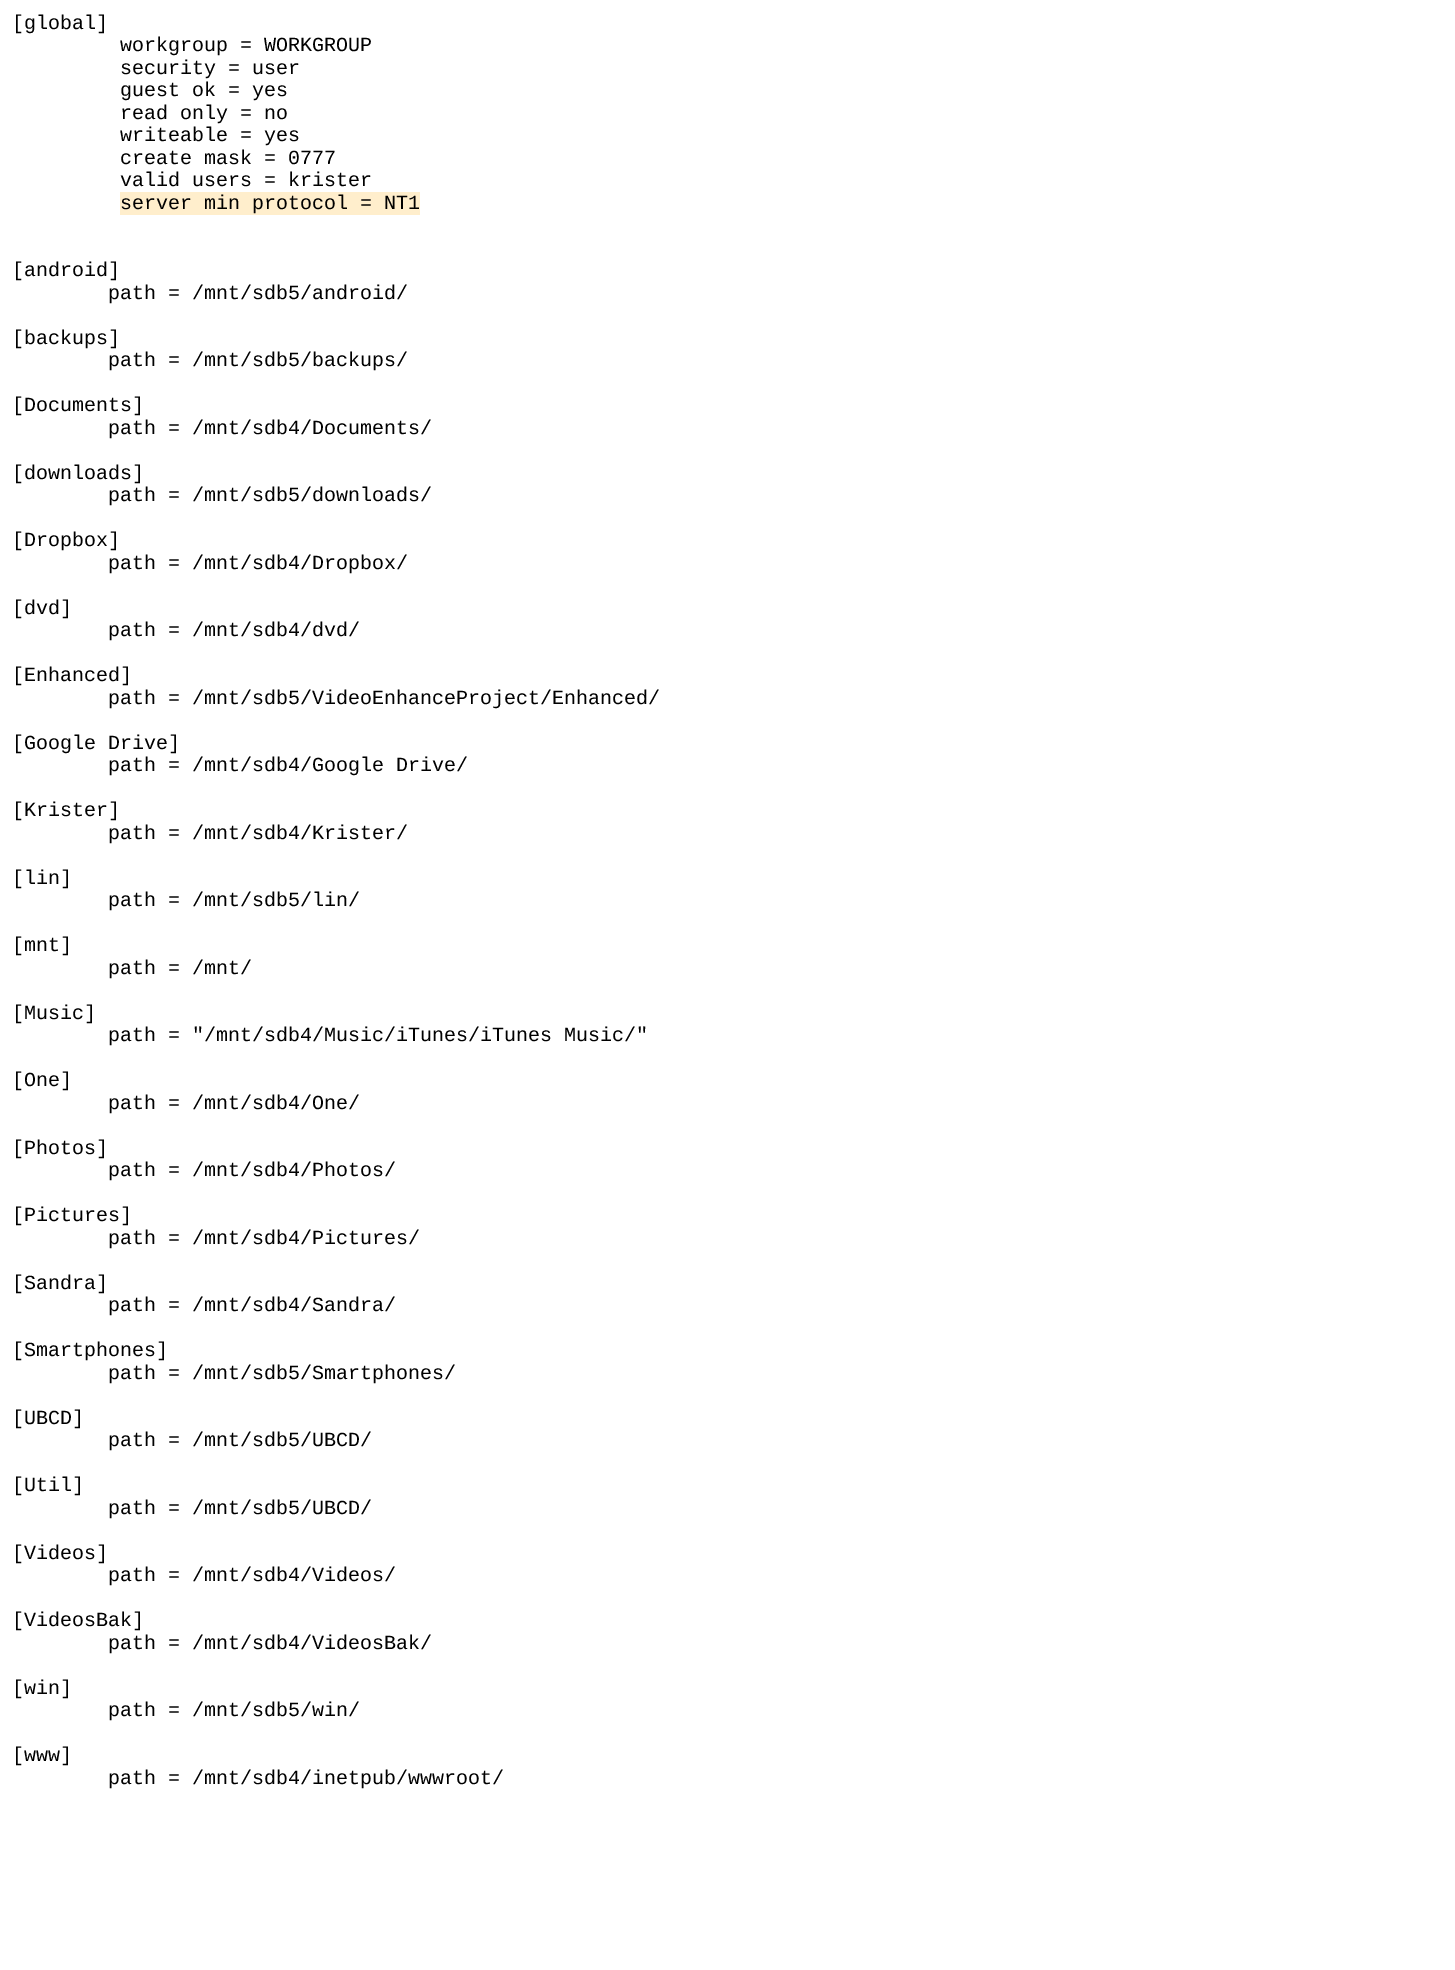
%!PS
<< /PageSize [1455 1970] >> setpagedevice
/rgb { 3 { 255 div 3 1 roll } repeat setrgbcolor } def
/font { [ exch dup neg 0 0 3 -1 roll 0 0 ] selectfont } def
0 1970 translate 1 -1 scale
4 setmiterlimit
255 255 255 rgb
0 0 1455 1970 rectfill
255 238 204 rgb
120 192 300 23 rectfill
/LiberationMono-Regular 20 font
0 0 0 rgb
[
  [([global]) 12 29]
  [(workgroup = WORKGROUP) 120 51]
  [(security = user) 120 74]
  [(guest ok = yes) 120 96]
  [(read only = no) 120 119]
  [(writeable = yes) 120 141]
  [(create mask = 0777) 120 164]
  [(valid users = krister) 120 186]
  [(server min protocol = NT1) 120 209]
  [([android]) 12 276]
  [(path = /mnt/sdb5/android/) 108 299]
  [([backups]) 12 344]
  [(path = /mnt/sdb5/backups/) 108 366]
  [([Documents]) 12 411]
  [(path = /mnt/sdb4/Documents/) 108 434]
  [([downloads]) 12 479]
  [(path = /mnt/sdb5/downloads/) 108 501]
  [([Dropbox]) 12 546]
  [(path = /mnt/sdb4/Dropbox/) 108 569]
  [([dvd]) 12 614]
  [(path = /mnt/sdb4/dvd/) 108 636]
  [([Enhanced]) 12 681]
  [(path = /mnt/sdb5/VideoEnhanceProject/Enhanced/) 108 704]
  [([Google Drive]) 12 749]
  [(path = /mnt/sdb4/Google Drive/) 108 771]
  [([Krister]) 12 816]
  [(path = /mnt/sdb4/Krister/) 108 839]
  [([lin]) 12 884]
  [(path = /mnt/sdb5/lin/) 108 906]
  [([mnt]) 12 951]
  [(path = /mnt/) 108 974]
  [([Music]) 12 1019]
  [(path = "/mnt/sdb4/Music/iTunes/iTunes Music/") 108 1041]
  [([One]) 12 1086]
  [(path = /mnt/sdb4/One/) 108 1109]
  [([Photos]) 12 1154]
  [(path = /mnt/sdb4/Photos/) 108 1176]
  [([Pictures]) 12 1221]
  [(path = /mnt/sdb4/Pictures/) 108 1244]
  [([Sandra]) 12 1289]
  [(path = /mnt/sdb4/Sandra/) 108 1311]
  [([Smartphones]) 12 1356]
  [(path = /mnt/sdb5/Smartphones/) 108 1379]
  [([UBCD]) 12 1424]
  [(path = /mnt/sdb5/UBCD/) 108 1446]
  [([Util]) 12 1491]
  [(path = /mnt/sdb5/UBCD/) 108 1514]
  [([Videos]) 12 1559]
  [(path = /mnt/sdb4/Videos/) 108 1581]
  [([VideosBak]) 12 1626]
  [(path = /mnt/sdb4/VideosBak/) 108 1649]
  [([win]) 12 1694]
  [(path = /mnt/sdb5/win/) 108 1716]
  [([www]) 12 1761]
  [(path = /mnt/sdb4/inetpub/wwwroot/) 108 1784]
] { aload pop moveto show } forall
showpage
